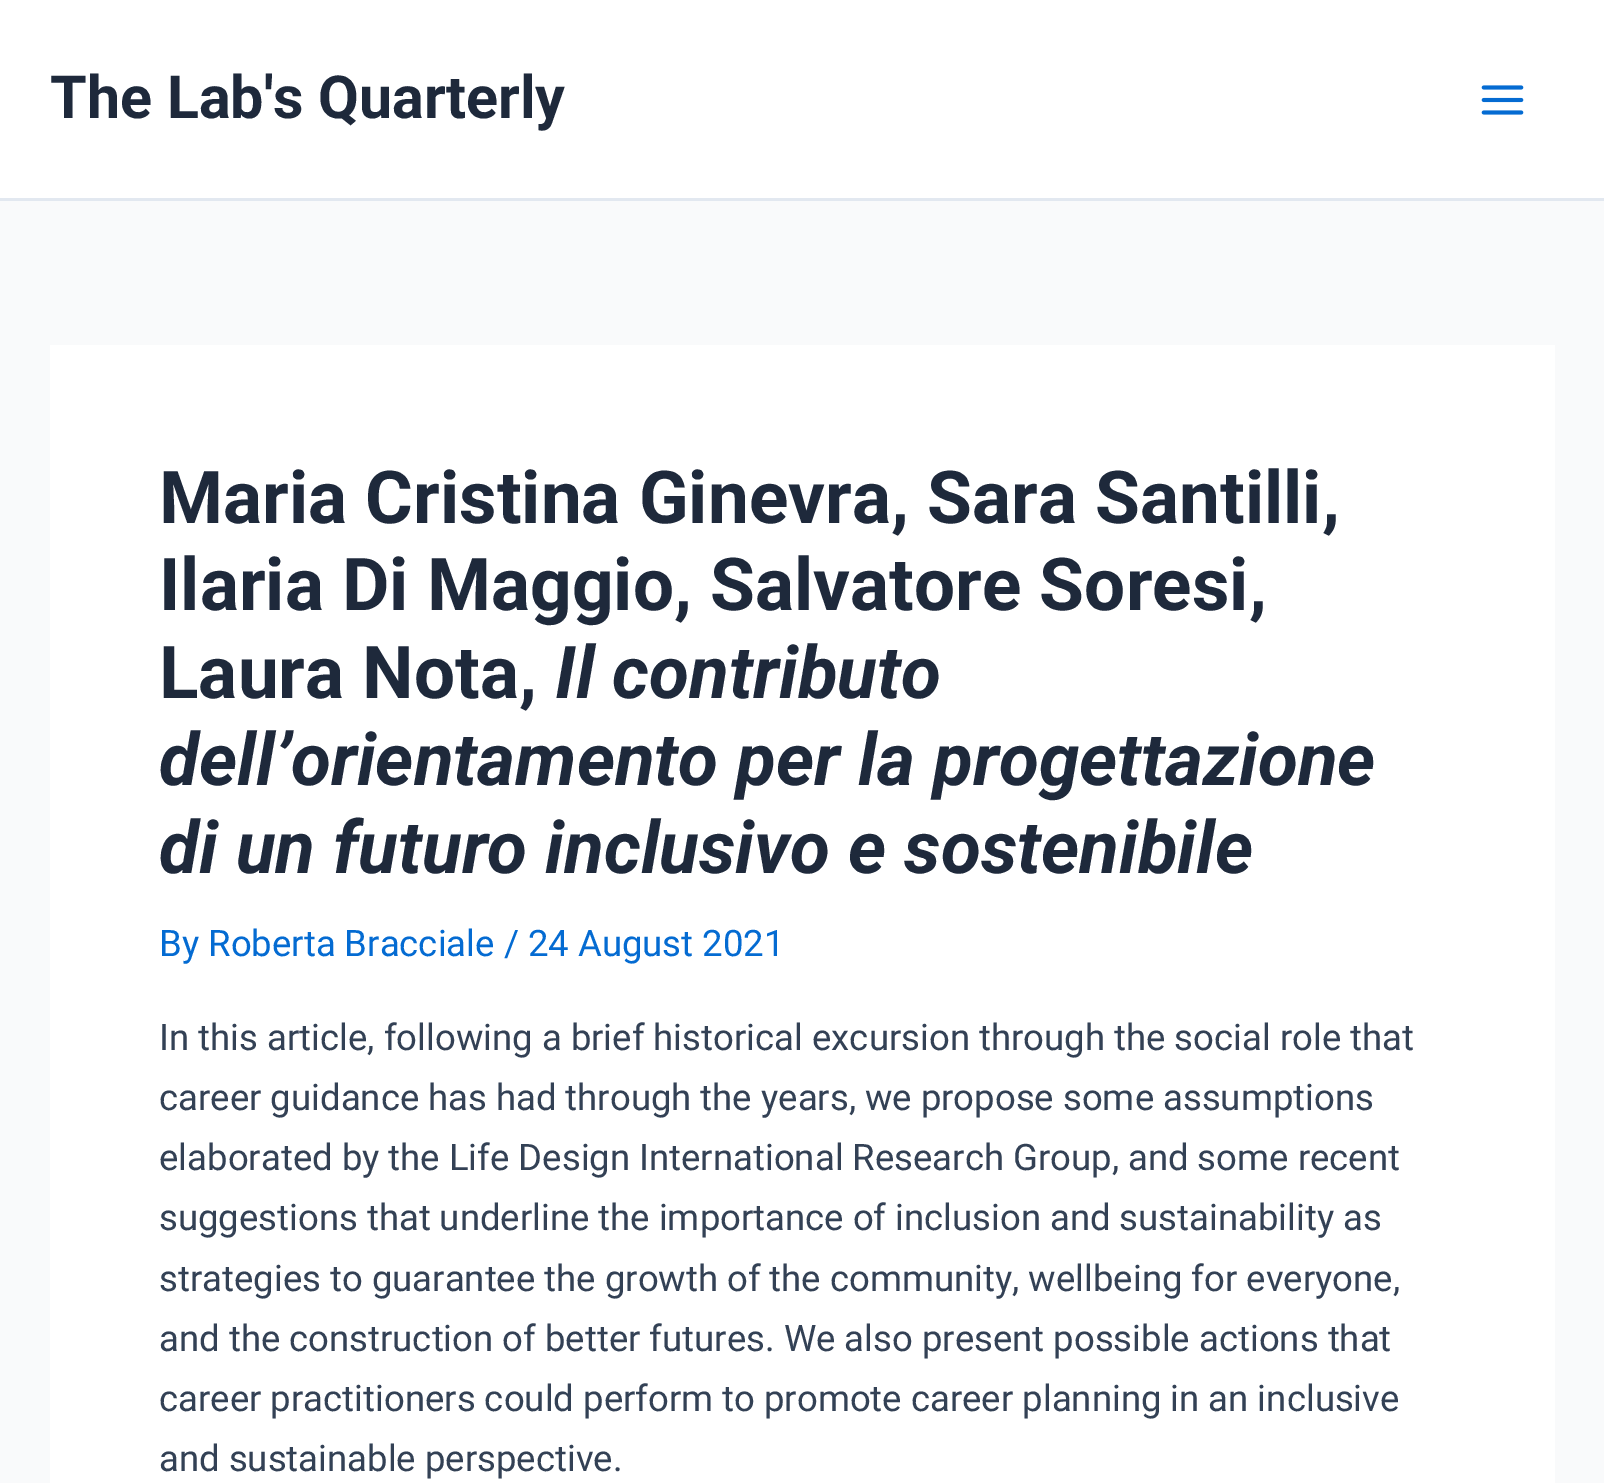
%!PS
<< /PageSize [1604 1483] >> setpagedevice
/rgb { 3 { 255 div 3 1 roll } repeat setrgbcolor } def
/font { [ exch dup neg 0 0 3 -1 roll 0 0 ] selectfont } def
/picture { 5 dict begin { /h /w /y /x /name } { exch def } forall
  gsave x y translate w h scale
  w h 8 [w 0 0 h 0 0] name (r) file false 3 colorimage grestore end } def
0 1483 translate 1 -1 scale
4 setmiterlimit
249 250 251 rgb
0 0 1604 1483 rectfill
255 255 255 rgb
0 0 1604 198 rectfill
226 232 240 rgb
0 198 1604 3 rectfill
(img/1.rgb) 1481 85 43 30 picture
255 255 255 rgb
50 345 1505 1138 rectfill
/Roboto-Bold 59.25 font
30 41 59 rgb
50 118 moveto (The Lab's Quarterly) show
/Roboto-Bold 73 font
[
  [(Maria Cristina Ginevra, Sara Santilli,) 159 523]
  [(Ilaria Di Maggio, Salvatore Soresi,) 159 610]
  [(Laura Nota,) 159 698]
] { aload pop moveto show } forall
/Roboto-BoldItalic 73 font
[
  [(Il contributo) 555 698]
  [(dell’orientamento per la progettazione) 159 785]
  [(di un futuro inclusivo e sostenibile) 159 873]
] { aload pop moveto show } forall
/Roboto-Regular 36.5 font
4 107 210 rgb
159 956 moveto (By Roberta Bracciale / 24 August 2021) show
51 65 85 rgb
[
  [(In this article, following a brief historical excursion through the social role that) 159 1050]
  [(career guidance has had through the years, we propose some assumptions) 159 1110]
  [(elaborated by the Life Design International Research Group, and some recent) 159 1170]
] { aload pop moveto show } forall
159 1230 moveto -0.1 0 32 (suggestions that underline the importance of inclusion and sustainability as) widthshow
[
  [(strategies to guarantee the growth of the community, wellbeing for everyone,) 159 1291]
  [(and the construction of better futures. We also present possible actions that) 159 1351]
  [(career practitioners could perform to promote career planning in an inclusive) 159 1411]
  [(and sustainable perspective.) 159 1471]
] { aload pop moveto show } forall
showpage
